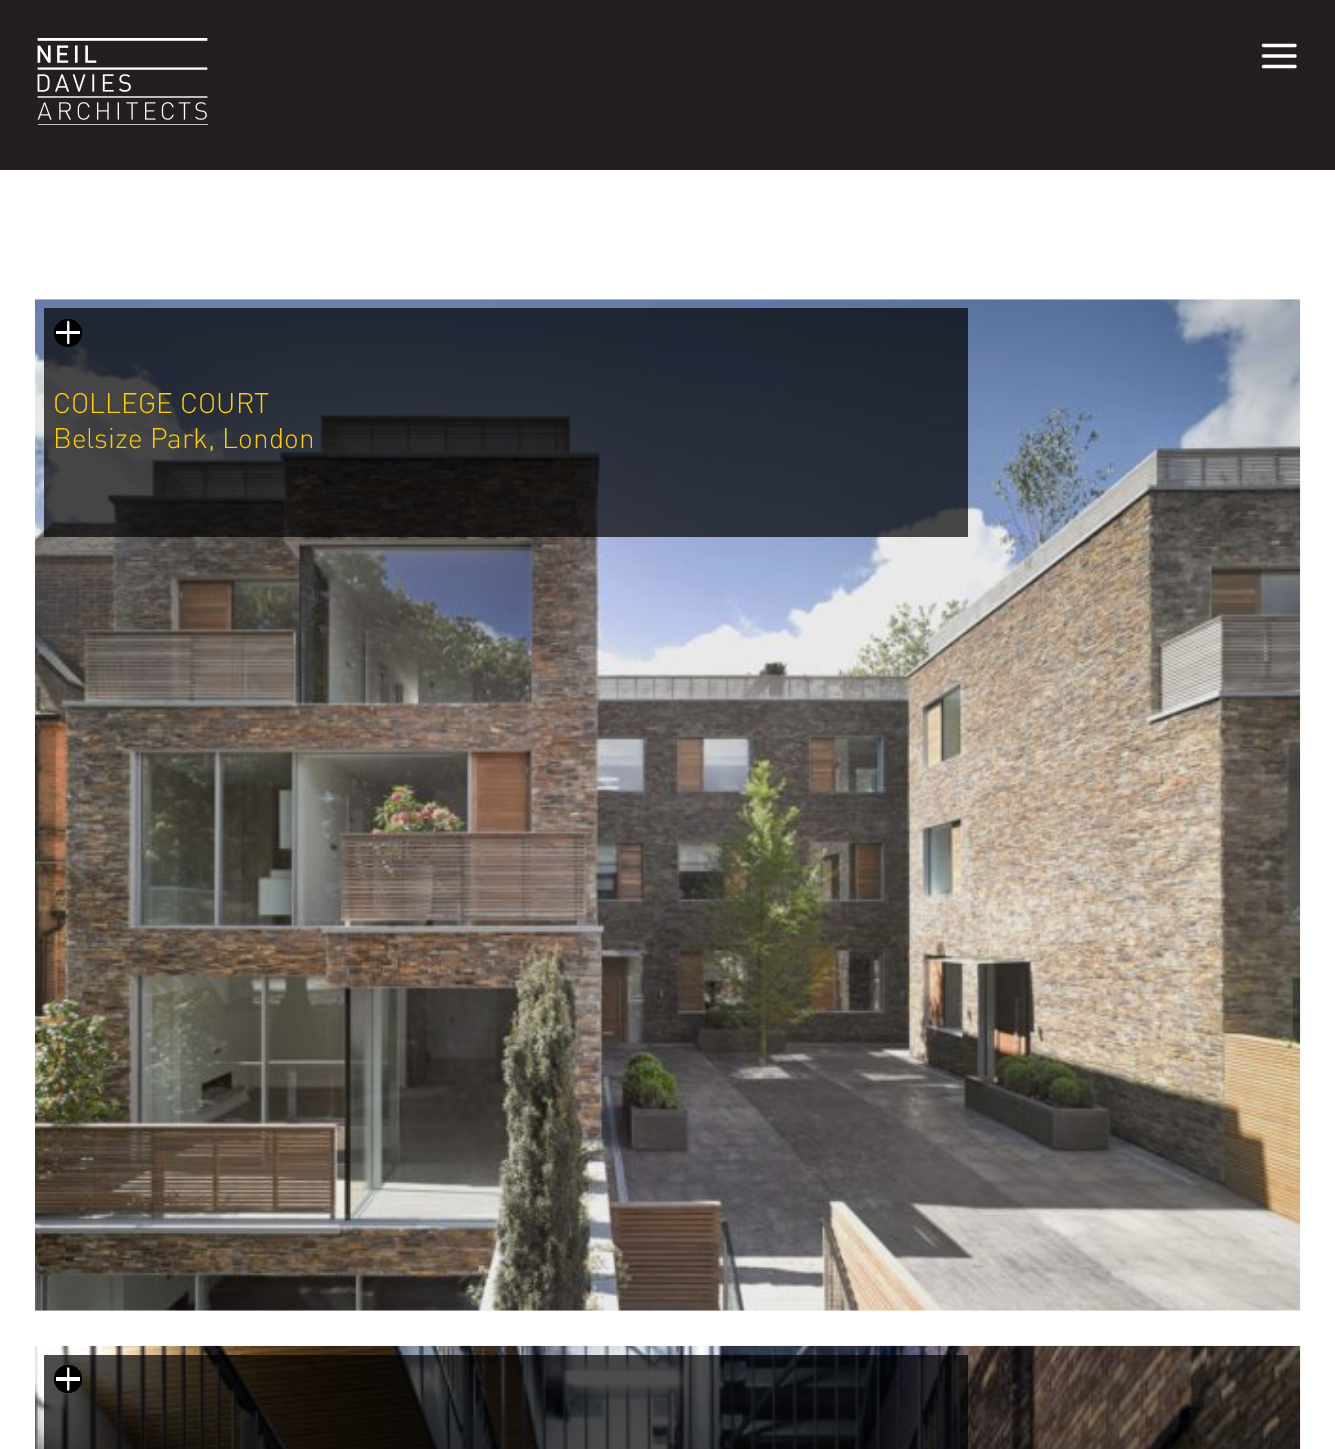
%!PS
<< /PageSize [1335 1449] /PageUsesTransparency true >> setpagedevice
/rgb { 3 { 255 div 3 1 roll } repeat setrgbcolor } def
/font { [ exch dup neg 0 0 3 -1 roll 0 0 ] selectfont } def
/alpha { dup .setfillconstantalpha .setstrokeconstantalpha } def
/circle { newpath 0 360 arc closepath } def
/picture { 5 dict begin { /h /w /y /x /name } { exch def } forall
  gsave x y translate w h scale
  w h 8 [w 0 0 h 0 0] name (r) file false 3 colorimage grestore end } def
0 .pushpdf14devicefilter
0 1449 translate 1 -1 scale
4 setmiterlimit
255 255 255 rgb
0 0 1335 1449 rectfill
35 31 32 rgb
0 0 1335 170 rectfill
(img/1.rgb) 37 38 171 87 picture
(img/2.rgb) 1261 43 36 26 picture
(img/3.rgb) 35 299 1266 1012 picture
0.7 alpha
0 0 0 rgb
44 308 924 229 rectfill
1 alpha
68 333 14 circle fill
(img/4.rgb) 67 320 3 25 picture
255 255 255 rgb
56 331 24 3 rectfill
(img/5.rgb) 35 1345 1266 104 picture
0.7 alpha
0 0 0 rgb
44 1355 924 94 rectfill
1 alpha
68 1379 14 circle fill
(img/6.rgb) 67 1367 3 24 picture
255 255 255 rgb
56 1377 24 4 rectfill
/DIN-Light 28 font
255 205 0 rgb
53 413 moveto (COLLEGE COURT) show
53 448 moveto (Belsize Park, London) show
.poppdf14devicefilter showpage
